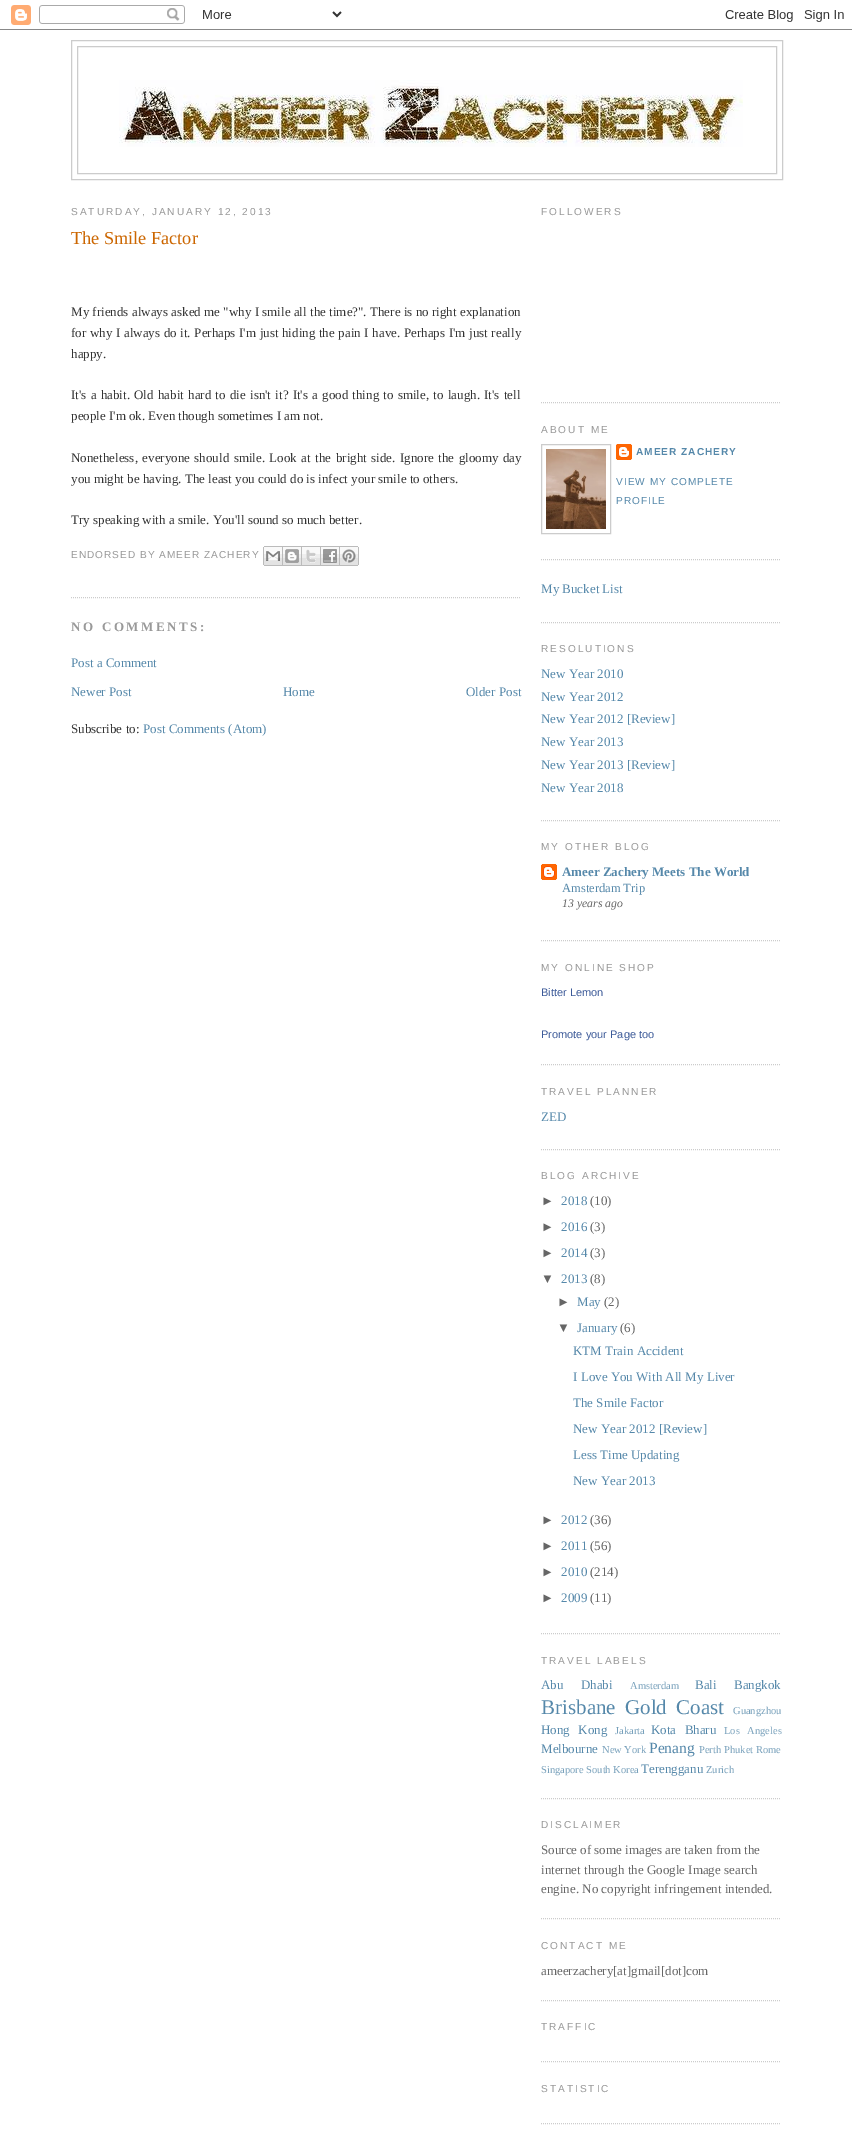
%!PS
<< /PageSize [852 2137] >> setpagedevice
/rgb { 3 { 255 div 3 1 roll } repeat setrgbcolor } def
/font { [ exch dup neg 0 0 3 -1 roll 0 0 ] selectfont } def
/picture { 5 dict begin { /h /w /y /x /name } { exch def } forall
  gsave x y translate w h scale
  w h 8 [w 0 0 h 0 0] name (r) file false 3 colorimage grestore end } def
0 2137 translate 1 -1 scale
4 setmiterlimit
255 255 255 rgb
0 0 852 2137 rectfill
(img/1.rgb) 0 5 852 25 picture
204 204 204 rgb
71.5 40.5 711 139 rectstroke
77.5 46.5 699 127 rectstroke
(img/2.rgb) 119 80 624 67 picture
[1 1] 0 setdash
71 597.5 moveto 521 597.5 lineto stroke
(img/3.rgb) 263 546 20 20 picture
(img/4.rgb) 283 546 19 20 picture
(img/5.rgb) 302 546 19 20 picture
(img/6.rgb) 321 546 19 20 picture
(img/7.rgb) 340 546 19 20 picture
541 402.5 moveto 781 402.5 lineto stroke
541 559.5 moveto 781 559.5 lineto stroke
[] 0 setdash
541.5 444.5 69 89 rectstroke
(img/8.rgb) 546 449 60 80 picture
(img/9.rgb) 616 444 16 16 picture
[1 1] 0 setdash
541 622.5 moveto 781 622.5 lineto stroke
541 820.5 moveto 781 820.5 lineto stroke
541 940.5 moveto 781 940.5 lineto stroke
(img/10.rgb) 541 864 16 16 picture
541 1064.5 moveto 781 1064.5 lineto stroke
541 1149.5 moveto 781 1149.5 lineto stroke
541 1633.5 moveto 781 1633.5 lineto stroke
541 1798.5 moveto 781 1798.5 lineto stroke
541 1918.5 moveto 781 1918.5 lineto stroke
541 2000.5 moveto 781 2000.5 lineto stroke
541 2061.5 moveto 781 2061.5 lineto stroke
541 2123.5 moveto 781 2123.5 lineto stroke
/LiberationSans-Regular 10.1 font
153 153 153 rgb
71 215 moveto 2 0 (SATURDAY, JANUARY 12, 2013) ashow
/LiberationSerif-Regular 18.25 font
204 102 0 rgb
71 244 moveto (The Smile Factor) show
/LiberationSerif-Regular 13 font
51 51 51 rgb
71 316 moveto 0.1 0 32 (My friends always asked me "why I smile all the time?". There is no right explanation) widthshow
71 337 moveto 0.4 0 32 (for why I always do it. Perhaps I'm just hiding the pain I have. Perhaps I'm just really) widthshow
71 358 moveto (happy.) show
71 399 moveto 1 0 32 (It's a habit. Old habit hard to die isn't it? It's a good thing to smile, to laugh. It's tell) widthshow
71 420 moveto (people I'm ok. Even though sometimes I am not.) show
71 462 moveto 1.25 0 32 (Nonetheless, everyone should smile. Look at the bright side. Ignore the gloomy day) widthshow
71 483 moveto (you might be having. The least you could do is infect your smile to others.) show
71 524 moveto (Try speaking with a smile. You'll sound so much better.) show
/LiberationSans-Regular 10.1 font
153 153 153 rgb
71 558 moveto 1 0 (ENDORSED BY AMEER ZACHERY) ashow
/LiberationSerif-Bold 13 font
71 631 moveto 2.6 0 (NO COMMENTS:) ashow
/LiberationSerif-Regular 13 font
85 136 170 rgb
[
  [(Post a Comment) 71 667]
  [(Newer Post) 71 696]
  [(Home) 283 696]
  [(Older Post) 466 696]
] { aload pop moveto show } forall
51 51 51 rgb
71 733 moveto (Subscribe to:) show
85 136 170 rgb
143 733 moveto (Post Comments \(Atom\)) show
/LiberationSans-Regular 10.1 font
153 153 153 rgb
541 215 moveto 2 0 (FOLLOWERS) ashow
541 433 moveto 2 0 (ABOUT ME) ashow
/LiberationSans-Bold 10.1 font
85 136 170 rgb
636 455 moveto 1 0 (AMEER ZACHERY) ashow
/LiberationSans-Regular 10.1 font
616 485 moveto 1 0 (VIEW MY COMPLETE) ashow
616 504 moveto 1 0 (PROFILE) ashow
/LiberationSerif-Regular 13 font
541 593 moveto (My Bucket List) show
/LiberationSans-Regular 10.1 font
153 153 153 rgb
541 652 moveto 2 0 (RESOLUTIONS) ashow
/LiberationSerif-Regular 13 font
85 136 170 rgb
[
  [(New Year 2010) 541 678]
  [(New Year 2012) 541 701]
  [(New Year 2012 [Review]) 541 723]
  [(New Year 2013) 541 746]
  [(New Year 2013 [Review]) 541 769]
  [(New Year 2018) 541 792]
] { aload pop moveto show } forall
/LiberationSans-Regular 10.1 font
153 153 153 rgb
541 850 moveto 2 0 (MY OTHER BLOG) ashow
/LiberationSerif-Bold 13 font
85 136 170 rgb
562 876 moveto (Ameer Zachery Meets The World) show
/LiberationSerif-Regular 12.5 font
562 892 moveto (Amsterdam Trip) show
/LiberationSerif-Italic 11.75 font
102 102 102 rgb
562 907 moveto (13 years ago) show
/LiberationSans-Regular 10.1 font
153 153 153 rgb
541 971 moveto 2 0 (MY ONLINE SHOP) ashow
/LiberationSans-Regular 11 font
59 89 152 rgb
541 996 moveto (Bitter Lemon) show
541 1038 moveto (Promote your Page too) show
/LiberationSans-Regular 10.1 font
153 153 153 rgb
541 1095 moveto 2 0 (TRAVEL PLANNER) ashow
/LiberationSerif-Regular 13 font
85 136 170 rgb
541 1121 moveto (ZED) show
/LiberationSans-Regular 10.1 font
153 153 153 rgb
541 1179 moveto 2 0 (BLOG ARCHIVE) ashow
/LiberationSans-Regular 13 font
102 102 102 rgb
541 1205 moveto (►) show
/LiberationSerif-Regular 13 font
85 136 170 rgb
561 1205 moveto (2018) show
102 102 102 rgb
590 1205 moveto (\(10\)) show
/LiberationSans-Regular 13 font
541 1231 moveto (►) show
/LiberationSerif-Regular 13 font
85 136 170 rgb
561 1231 moveto (2016) show
102 102 102 rgb
590 1231 moveto (\(3\)) show
/LiberationSans-Regular 13 font
541 1257 moveto (►) show
/LiberationSerif-Regular 13 font
85 136 170 rgb
561 1257 moveto (2014) show
102 102 102 rgb
590 1257 moveto (\(3\)) show
/LiberationSans-Regular 13 font
541 1283 moveto (▼) show
/LiberationSerif-Regular 13 font
85 136 170 rgb
561 1283 moveto (2013) show
102 102 102 rgb
590 1283 moveto (\(8\)) show
/LiberationSans-Regular 13 font
557 1306 moveto (►) show
/LiberationSerif-Regular 13 font
85 136 170 rgb
577 1306 moveto (May) show
102 102 102 rgb
604 1306 moveto (\(2\)) show
/LiberationSans-Regular 13 font
557 1332 moveto (▼) show
/LiberationSerif-Regular 13 font
85 136 170 rgb
577 1332 moveto (January) show
102 102 102 rgb
620 1332 moveto (\(6\)) show
85 136 170 rgb
[
  [(KTM Train Accident) 573 1355]
  [(I Love You With All My Liver) 573 1381]
  [(The Smile Factor) 573 1407]
  [(New Year 2012 [Review]) 573 1433]
  [(Less Time Updating) 573 1459]
  [(New Year 2013) 573 1485]
] { aload pop moveto show } forall
/LiberationSans-Regular 13 font
102 102 102 rgb
541 1524 moveto (►) show
/LiberationSerif-Regular 13 font
85 136 170 rgb
561 1524 moveto (2012) show
102 102 102 rgb
590 1524 moveto (\(36\)) show
/LiberationSans-Regular 13 font
541 1550 moveto (►) show
/LiberationSerif-Regular 13 font
85 136 170 rgb
561 1550 moveto (2011) show
102 102 102 rgb
590 1550 moveto (\(56\)) show
/LiberationSans-Regular 13 font
541 1576 moveto (►) show
/LiberationSerif-Regular 13 font
85 136 170 rgb
561 1576 moveto (2010) show
102 102 102 rgb
590 1576 moveto (\(214\)) show
/LiberationSans-Regular 13 font
541 1602 moveto (►) show
/LiberationSerif-Regular 13 font
85 136 170 rgb
561 1602 moveto (2009) show
102 102 102 rgb
590 1602 moveto (\(11\)) show
/LiberationSans-Regular 10.1 font
153 153 153 rgb
541 1664 moveto 2 0 (TRAVEL LABELS) ashow
/LiberationSerif-Regular 13 font
85 136 170 rgb
541 1689 moveto 14 0 32 (Abu Dhabi) widthshow
/LiberationSerif-Regular 10.5 font
119 160 187 rgb
630 1689 moveto (Amsterdam) show
/LiberationSerif-Regular 13 font
85 136 170 rgb
695 1689 moveto (Bali) show
734 1689 moveto (Bangkok) show
/LiberationSerif-Regular 21 font
541 1714 moveto (Brisbane) show
625 1714 moveto 4 0 32 (Gold Coast) widthshow
/LiberationSerif-Regular 10.5 font
119 160 187 rgb
733 1714 moveto (Guangzhou) show
/LiberationSerif-Regular 13 font
85 136 170 rgb
541 1734 moveto 5 0 32 (Hong Kong) widthshow
/LiberationSerif-Regular 10.5 font
119 160 187 rgb
615 1734 moveto (Jakarta) show
/LiberationSerif-Regular 13 font
85 136 170 rgb
651 1734 moveto 5 0 32 (Kota Bharu) widthshow
/LiberationSerif-Regular 10.5 font
119 160 187 rgb
724 1734 moveto 5 0 32 (Los Angeles) widthshow
/LiberationSerif-Regular 13 font
85 136 170 rgb
541 1753 moveto (Melbourne) show
/LiberationSerif-Regular 10.5 font
119 160 187 rgb
602 1753 moveto (New York) show
/LiberationSerif-Regular 15.5 font
85 136 170 rgb
649 1753 moveto (Penang) show
/LiberationSerif-Regular 10.5 font
119 160 187 rgb
[
  [(Perth) 699 1753]
  [(Phuket) 724 1753]
  [(Rome) 756 1753]
  [(Singapore South Korea) 541 1773]
] { aload pop moveto show } forall
/LiberationSerif-Regular 13 font
85 136 170 rgb
641 1773 moveto (Terengganu) show
/LiberationSerif-Regular 10.5 font
119 160 187 rgb
706 1773 moveto (Zurich) show
/LiberationSans-Regular 10.1 font
153 153 153 rgb
541 1828 moveto 2 0 (DISCLAIMER) ashow
/LiberationSerif-Regular 13 font
102 102 102 rgb
[
  [(Source of some images are taken from the) 541 1854]
  [(internet through the Google Image search) 541 1874]
  [(engine. No copyright infringement intended.) 541 1893]
] { aload pop moveto show } forall
/LiberationSans-Regular 10.1 font
153 153 153 rgb
541 1949 moveto 2 0 (CONTACT ME) ashow
/LiberationSerif-Regular 13 font
102 102 102 rgb
541 1975 moveto (ameerzachery[at]gmail[dot]com) show
/LiberationSans-Regular 10.1 font
153 153 153 rgb
541 2030 moveto 2 0 (TRAFFIC) ashow
541 2092 moveto 2 0 (STATISTIC) ashow
showpage
